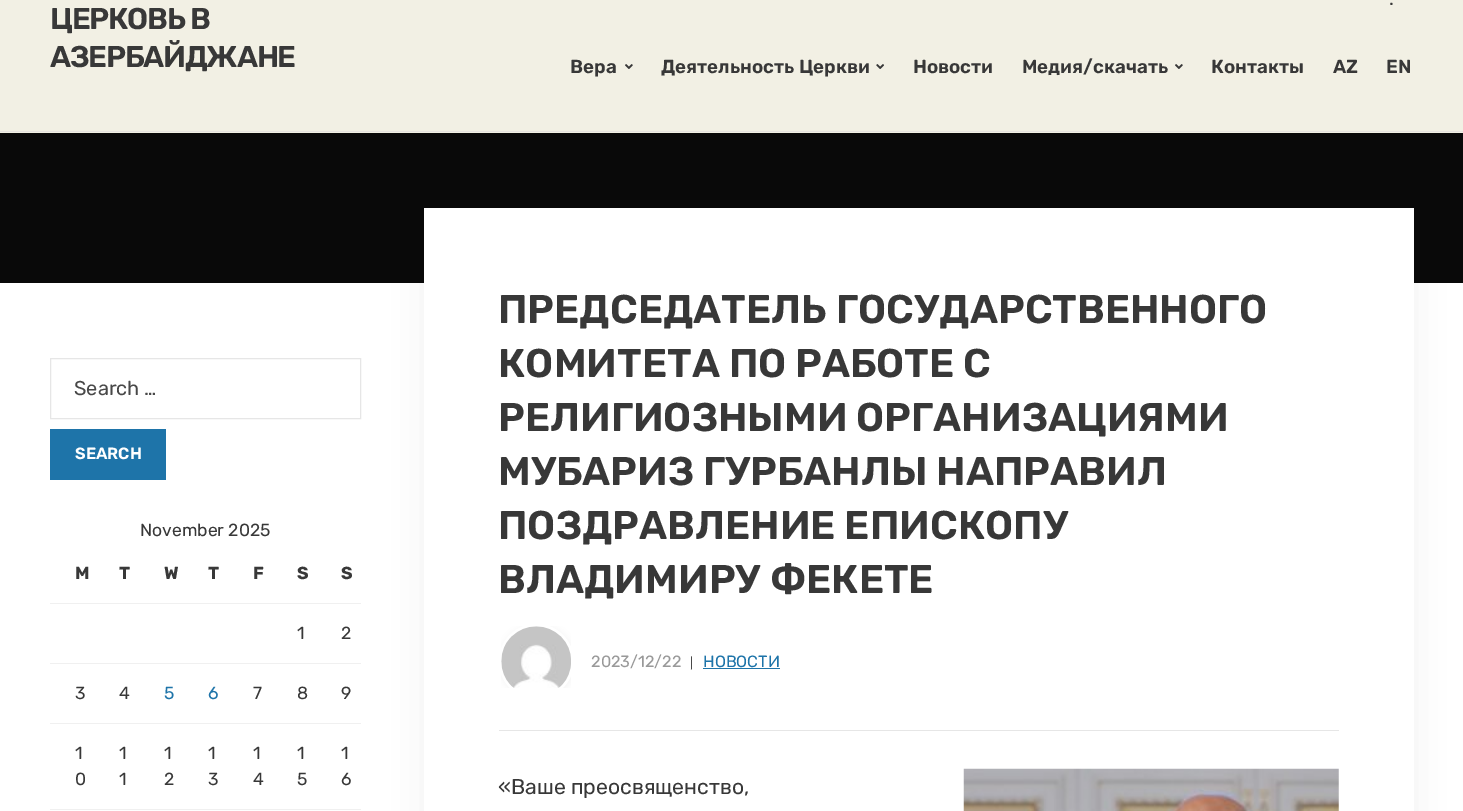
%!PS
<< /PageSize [1463 811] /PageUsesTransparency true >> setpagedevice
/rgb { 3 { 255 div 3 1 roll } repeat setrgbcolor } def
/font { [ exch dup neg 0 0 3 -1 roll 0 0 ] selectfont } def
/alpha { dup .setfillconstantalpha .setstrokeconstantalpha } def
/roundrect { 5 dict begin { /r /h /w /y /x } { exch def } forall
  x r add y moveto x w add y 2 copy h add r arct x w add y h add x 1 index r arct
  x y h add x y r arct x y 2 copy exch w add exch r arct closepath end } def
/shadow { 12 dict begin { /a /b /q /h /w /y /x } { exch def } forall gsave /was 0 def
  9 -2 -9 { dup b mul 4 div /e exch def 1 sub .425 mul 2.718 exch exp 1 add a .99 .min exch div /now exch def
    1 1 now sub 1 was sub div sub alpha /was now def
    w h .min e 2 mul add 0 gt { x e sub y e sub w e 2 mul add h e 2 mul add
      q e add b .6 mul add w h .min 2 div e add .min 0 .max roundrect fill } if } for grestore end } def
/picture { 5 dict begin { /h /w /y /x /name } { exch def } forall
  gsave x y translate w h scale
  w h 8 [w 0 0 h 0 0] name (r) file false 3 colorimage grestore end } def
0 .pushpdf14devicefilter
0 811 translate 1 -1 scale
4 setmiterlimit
255 255 255 rgb
0 0 1463 811 rectfill
242 240 228 rgb
0 0 1463 133 rectfill
231 227 224 rgb
0 131 1463 1 rectfill
(img/1.rgb) 625 64 8 5 picture
(img/2.rgb) 876 64 8 5 picture
(img/1.rgb) 1175 64 8 5 picture
9 9 9 rgb
0 133 1463 150 rectfill
230 230 230 rgb
50.5 358.5 310 60 rectstroke
[
  [50 429 116 51 30 116 169]
  [50 603 311 1 240 240 240]
  [50 663 311 1 240 240 240]
  [50 723 311 1 240 240 240]
  [50 809 311 1 240 240 240]
] { aload pop rgb rectfill } forall
0 0 0 rgb
424 208 990 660 0 19 0.06 shadow
255 255 255 rgb
424 208 990 603 rectfill
230 230 230 rgb
499 730 840 1 rectfill
(img/3.rgb) 501 626 70 62 picture
30 116 169 rgb
703 668 77 1 rectfill
(img/4.rgb) 963 768 376 43 picture
/Rubik-SemiBold 30 font
56 56 56 rgb
50 29 moveto -1.25 0 (ЦЕРКОВЬ В) ashow
50 67 moveto -1.25 0 (АЗЕРБАЙДЖАНЕ) ashow
/Rubik-Regular 18.75 font
1389 5 moveto (.) show
/Rubik-SemiBold 18.75 font
[
  [(Вера) 570 73]
  [(Деятельность Церкви) 661 73]
  [(Новости) 913 73]
  [(Медия/скачать) 1022 73]
  [(Контакты) 1211 73]
  [(AZ) 1333 73]
  [(EN) 1386 73]
] { aload pop moveto show } forall
/Rubik-Regular 20 font
72 72 72 rgb
74 395 moveto (Search …) show
/Rubik-SemiBold 16.25 font
255 255 255 rgb
75 459 moveto (SEARCH) show
/Rubik-Regular 17.5 font
56 56 56 rgb
140 536 moveto (November 2025) show
/Rubik-Bold 17.5 font
[
  [(M) 75 579]
  [(T) 119 579]
  [(W) 164 579]
  [(T) 208 579]
  [(F) 253 579]
  [(S) 297 579]
  [(S) 341 579]
] { aload pop moveto show } forall
/Rubik-Regular 17.5 font
[
  [(1) 297 639]
  [(2) 341 639]
  [(3) 75 699]
  [(4) 119 699]
] { aload pop moveto show } forall
30 116 169 rgb
164 699 moveto (5) show
208 699 moveto (6) show
56 56 56 rgb
[
  [(7) 253 699]
  [(8) 297 699]
  [(9) 341 699]
  [(1) 75 759]
  [(0) 75 785]
  [(1) 119 759]
  [(1) 119 785]
  [(1) 164 759]
  [(2) 164 785]
  [(1) 208 759]
  [(3) 208 785]
  [(1) 253 759]
  [(4) 253 785]
  [(1) 297 759]
  [(5) 297 785]
  [(1) 341 759]
  [(6) 341 785]
] { aload pop moveto show } forall
/Rubik-SemiBold 40 font
[
  [(ПРЕДСЕДАТЕЛЬ ГОСУДАРСТВЕННОГО) 498 323]
  [(КОМИТЕТА ПО РАБОТЕ С) 498 377]
  [(РЕЛИГИОЗНЫМИ ОРГАНИЗАЦИЯМИ) 498 431]
  [(МУБАРИЗ ГУРБАНЛЫ НАПРАВИЛ) 498 485]
  [(ПОЗДРАВЛЕНИЕ ЕПИСКОПУ) 498 539]
  [(ВЛАДИМИРУ ФЕКЕТЕ) 498 593]
] { aload pop moveto show } forall
/Rubik-Regular 16.25 font
153 153 153 rgb
591 667 moveto (2023/12/22) show
/Rubik-Regular 12 font
72 72 72 rgb
690 667 moveto (|) show
/Rubik-Regular 16.25 font
30 116 169 rgb
703 667 moveto (НОВОСТИ) show
/Rubik-Regular 21.25 font
56 56 56 rgb
498 794 moveto («Ваше преосвященство,) show
.poppdf14devicefilter showpage
